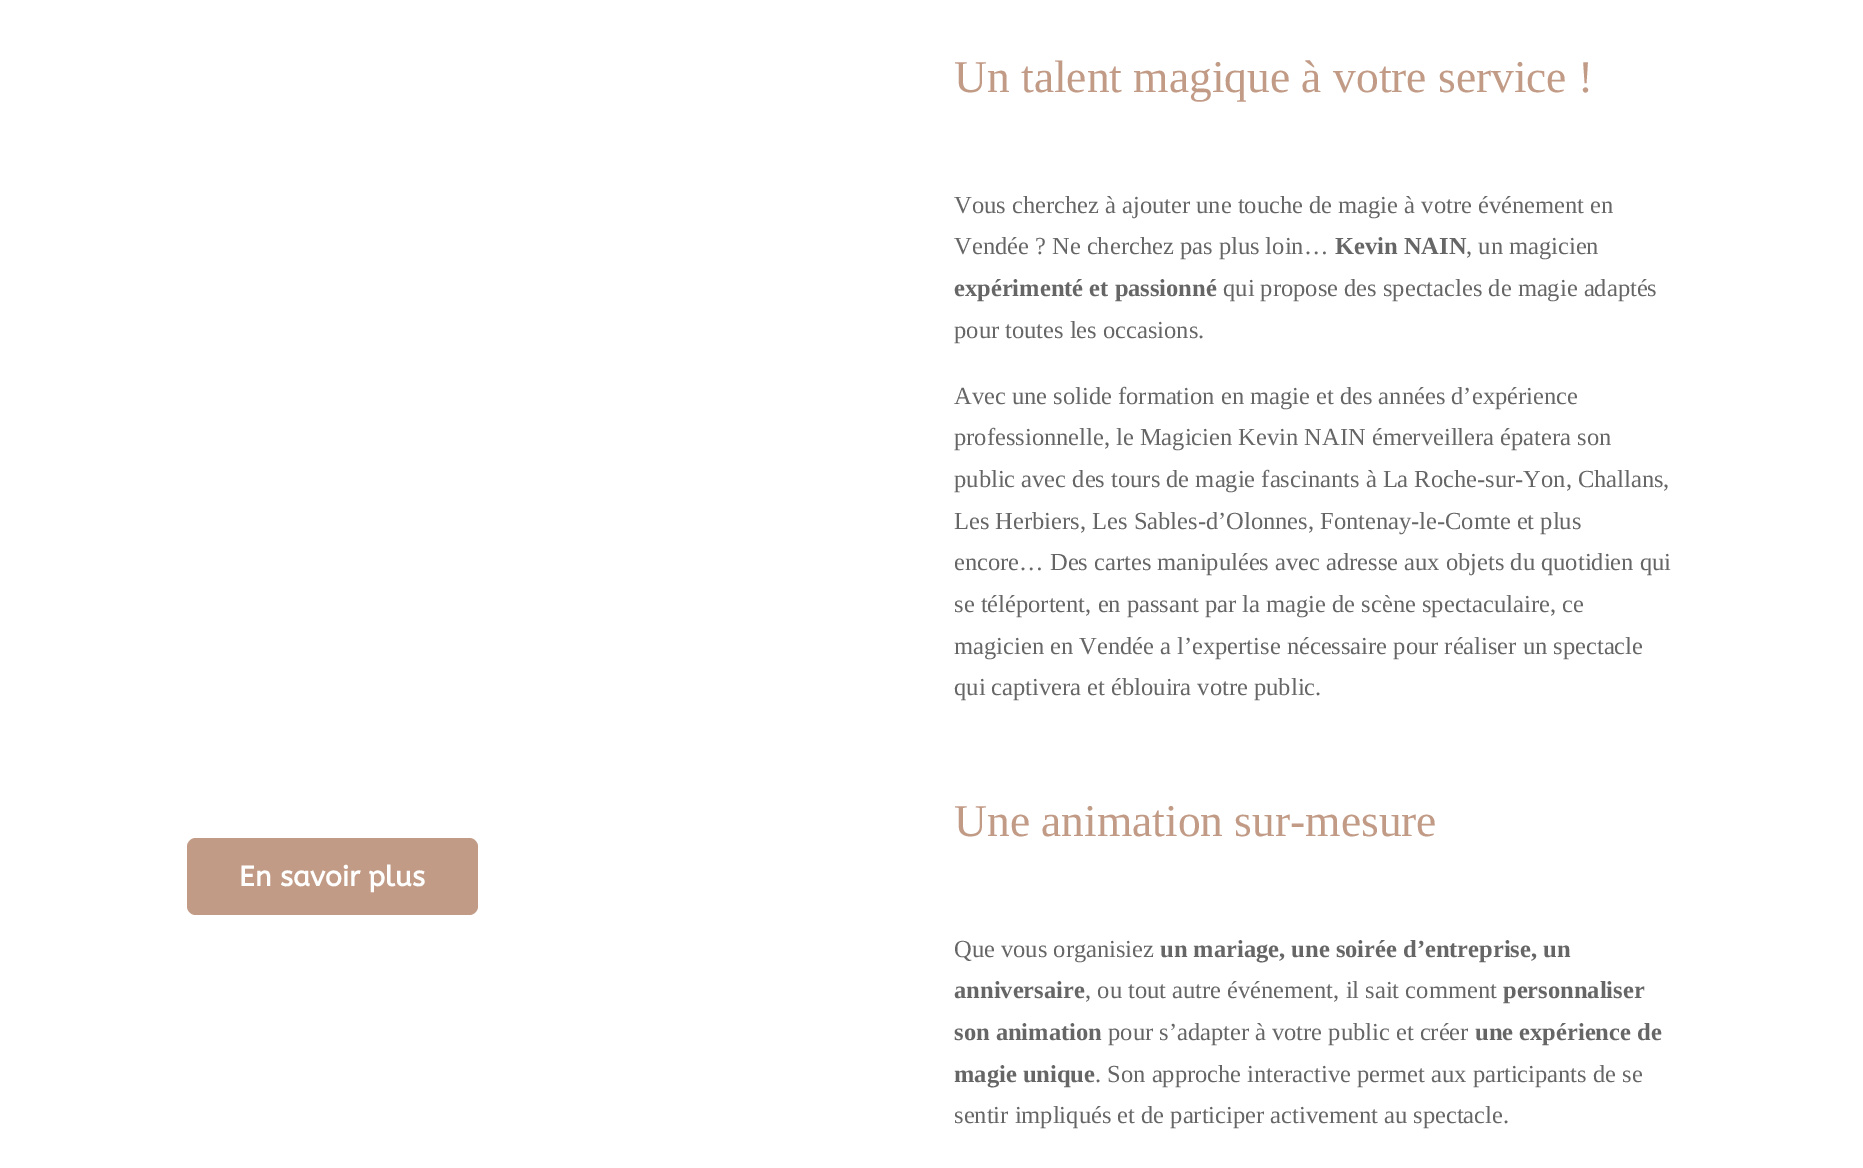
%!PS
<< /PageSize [1863 1168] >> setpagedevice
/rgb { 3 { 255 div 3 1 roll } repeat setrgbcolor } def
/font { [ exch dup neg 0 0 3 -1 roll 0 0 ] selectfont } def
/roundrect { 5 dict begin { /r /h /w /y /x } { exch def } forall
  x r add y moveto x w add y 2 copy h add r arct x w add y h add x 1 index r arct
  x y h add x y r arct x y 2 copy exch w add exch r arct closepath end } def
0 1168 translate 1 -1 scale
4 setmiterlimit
255 255 255 rgb
0 0 1863 1168 rectfill
194 155 134 rgb
187 838 291 77 9 roundrect fill
/ABeeZee-Bold 28 font
255 255 255 rgb
239 886 moveto (En savoir plus) show
/LiberationSerif-Regular 45.5 font
194 155 134 rgb
954 92 moveto (Un talent magique à votre service !) show
/LiberationSerif-Regular 24.5 font
102 102 102 rgb
954 213 moveto (Vous cherchez à ajouter une touche de magie à votre événement en) show
954 254 moveto (Vendée ? Ne cherchez pas plus loin…) show
/LiberationSerif-Bold 24.5 font
1335 254 moveto (Kevin NAIN) show
/LiberationSerif-Regular 24.5 font
1466 254 moveto (, un magicien) show
/LiberationSerif-Bold 24.5 font
954 296 moveto (expérimenté et passionné) show
/LiberationSerif-Regular 24.5 font
[
  [(qui propose des spectacles de magie adaptés) 1223 296]
  [(pour toutes les occasions.) 954 338]
  [(Avec une solide formation en magie et des années d’expérience) 954 404]
  [(professionnelle, le Magicien Kevin NAIN émerveillera épatera son) 954 445]
  [(public avec des tours de magie fascinants à La Roche-sur-Yon, Challans,) 954 487]
  [(Les Herbiers, Les Sables-d’Olonnes, Fontenay-le-Comte et plus) 954 529]
  [(encore… Des cartes manipulées avec adresse aux objets du quotidien qui) 954 570]
  [(se téléportent, en passant par la magie de scène spectaculaire, ce) 954 612]
  [(magicien en Vendée a l’expertise nécessaire pour réaliser un spectacle) 954 654]
  [(qui captivera et éblouira votre public.) 954 695]
] { aload pop moveto show } forall
/LiberationSerif-Regular 45.5 font
194 155 134 rgb
954 836 moveto (Une animation sur-mesure) show
/LiberationSerif-Regular 24.5 font
102 102 102 rgb
954 957 moveto (Que vous organisiez) show
/LiberationSerif-Bold 24.5 font
1160 957 moveto (un mariage, une soirée d’entreprise, un) show
954 998 moveto (anniversaire) show
/LiberationSerif-Regular 24.5 font
1085 998 moveto (, ou tout autre événement, il sait comment) show
/LiberationSerif-Bold 24.5 font
1503 998 moveto (personnaliser) show
954 1040 moveto (son animation) show
/LiberationSerif-Regular 24.5 font
1108 1040 moveto (pour s’adapter à votre public et créer) show
/LiberationSerif-Bold 24.5 font
1475 1040 moveto (une expérience de) show
954 1082 moveto (magie unique) show
/LiberationSerif-Regular 24.5 font
1095 1082 moveto (. Son approche interactive permet aux participants de se) show
954 1123 moveto (sentir impliqués et de participer activement au spectacle.) show
showpage
